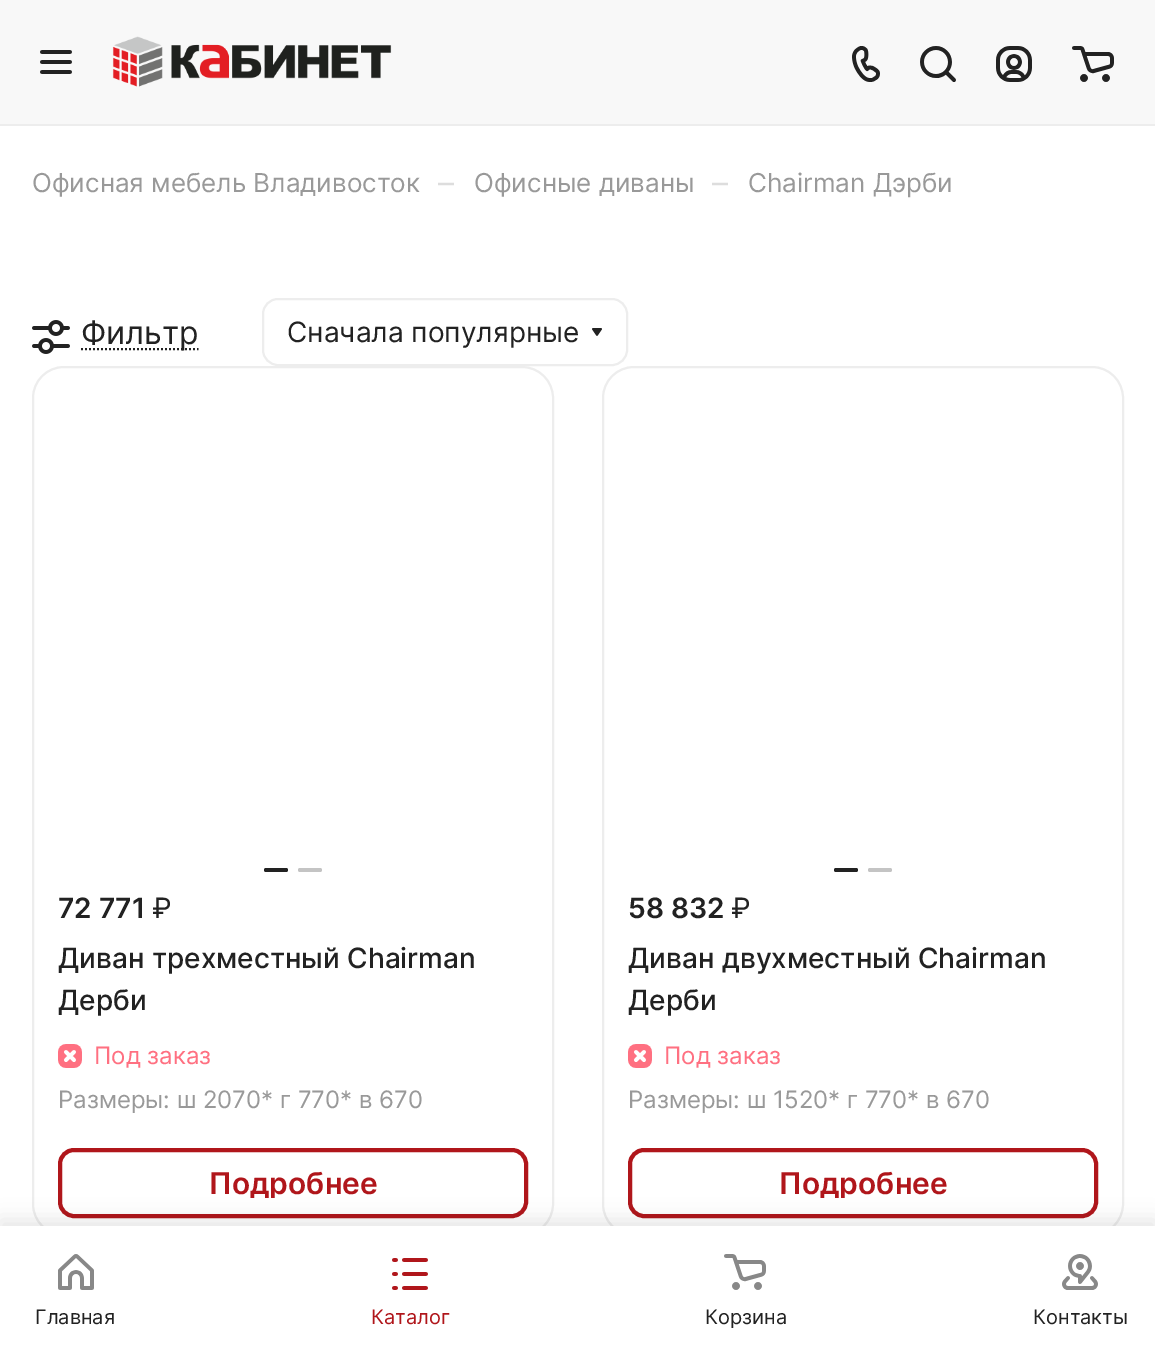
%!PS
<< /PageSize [1155 1348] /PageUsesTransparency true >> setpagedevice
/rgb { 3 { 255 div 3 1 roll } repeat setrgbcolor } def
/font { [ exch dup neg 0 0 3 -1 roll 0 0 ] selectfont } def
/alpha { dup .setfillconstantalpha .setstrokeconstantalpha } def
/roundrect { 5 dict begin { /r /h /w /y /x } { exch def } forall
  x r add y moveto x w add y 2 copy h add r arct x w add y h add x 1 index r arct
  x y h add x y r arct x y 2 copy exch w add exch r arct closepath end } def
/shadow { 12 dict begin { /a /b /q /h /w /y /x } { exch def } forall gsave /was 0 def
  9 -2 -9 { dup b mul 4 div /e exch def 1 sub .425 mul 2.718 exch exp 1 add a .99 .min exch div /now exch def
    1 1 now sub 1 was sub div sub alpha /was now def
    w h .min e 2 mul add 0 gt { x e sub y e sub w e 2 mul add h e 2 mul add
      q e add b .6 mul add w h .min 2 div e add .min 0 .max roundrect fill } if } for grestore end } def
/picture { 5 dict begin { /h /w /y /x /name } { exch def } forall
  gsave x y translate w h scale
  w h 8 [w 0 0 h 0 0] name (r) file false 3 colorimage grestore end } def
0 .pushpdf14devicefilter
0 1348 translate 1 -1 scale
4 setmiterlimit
255 255 255 rgb
0 0 1155 1348 rectfill
237 237 237 rgb
0 124 1155 2 rectfill
248 248 248 rgb
0 0 1155 124 rectfill
(img/1.rgb) 40 50 32 24 picture
(img/2.rgb) 112 36 280 51 picture
(img/3.rgb) 852 46 28 36 picture
(img/4.rgb) 920 46 36 36 picture
(img/5.rgb) 996 46 36 36 picture
(img/6.rgb) 1072 46 42 36 picture
(img/7.rgb) 32 320 38 34 picture
34 34 34 rgb
2 setlinewidth
[2 2] 0 setdash
81 349 moveto 198.5 349 lineto stroke
237 237 237 rgb
[] 0 setdash
263 299 364 66 15 roundrect stroke
(img/8.rgb) 592 328 10 8 picture
33 367 520 868 31 roundrect stroke
34 34 34 rgb
264 868 24 4 2 roundrect fill
196 196 196 rgb
298 868 24 4 2 roundrect fill
(img/9.rgb) 58 1044 24 24 picture
176 22 27 rgb
4 setlinewidth
60 1150 466 66 14 roundrect stroke
237 237 237 rgb
2 setlinewidth
603 367 520 868 31 roundrect stroke
34 34 34 rgb
834 868 24 4 2 roundrect fill
196 196 196 rgb
868 868 24 4 2 roundrect fill
(img/9.rgb) 628 1044 24 24 picture
176 22 27 rgb
4 setlinewidth
630 1150 466 66 14 roundrect stroke
0 0 0 rgb
0 1220 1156 122 0 10 0.1 shadow
255 255 255 rgb
0 1226 1155 122 rectfill
(img/10.rgb) 58 1254 36 36 picture
(img/11.rgb) 392 1258 36 32 picture
(img/12.rgb) 724 1254 42 36 picture
(img/13.rgb) 1062 1254 36 36 picture
/Inter-Regular 26 font
153 153 153 rgb
32 192 moveto (Офисная мебель Владивосток) show
/Inter-Regular 32 font
221 221 221 rgb
438 194 moveto (–) show
/Inter-Regular 26 font
153 153 153 rgb
474 192 moveto (Офисные диваны) show
/Inter-Regular 32 font
221 221 221 rgb
712 194 moveto (–) show
/Inter-Regular 26 font
153 153 153 rgb
748 192 moveto (Chairman Дэрби) show
/Inter-Regular 32 font
34 34 34 rgb
81 344 moveto (Фильтр) show
/Inter-Regular 28 font
287 342 moveto (Сначала популярные) show
/Inter-SemiBold 28 font
58 918 moveto (72 771) show
/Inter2-Regular 28 font
152 918 moveto (₽) show
/Inter-Medium 28 font
58 968 moveto (Диван трехместный Chairman) show
58 1010 moveto (Дерби) show
/Inter-Regular 24 font
255 112 129 rgb
94 1064 moveto (Под заказ) show
153 153 153 rgb
58 1108 moveto (Размеры: ш 2070* г 770* в 670) show
gsave
208 1168 170 30 rectclip
/Inter-SemiBold 30 font
176 22 27 rgb
209 1194 moveto (Подробнее) show
grestore
/Inter-SemiBold 28 font
34 34 34 rgb
628 918 moveto (58 832) show
/Inter2-Regular 28 font
731 918 moveto (₽) show
/Inter-Medium 28 font
628 968 moveto (Диван двухместный Chairman) show
628 1010 moveto (Дерби) show
/Inter-Regular 24 font
255 112 129 rgb
664 1064 moveto (Под заказ) show
153 153 153 rgb
628 1108 moveto (Размеры: ш 1520* г 770* в 670) show
gsave
778 1168 170 30 rectclip
/Inter-SemiBold 30 font
176 22 27 rgb
779 1194 moveto (Подробнее) show
grestore
/Inter-Regular 20 font
34 34 34 rgb
35 1324 moveto (Главная) show
176 22 27 rgb
371 1324 moveto (Каталог) show
34 34 34 rgb
705 1324 moveto (Корзина) show
1033 1324 moveto (Контакты) show
.poppdf14devicefilter showpage
